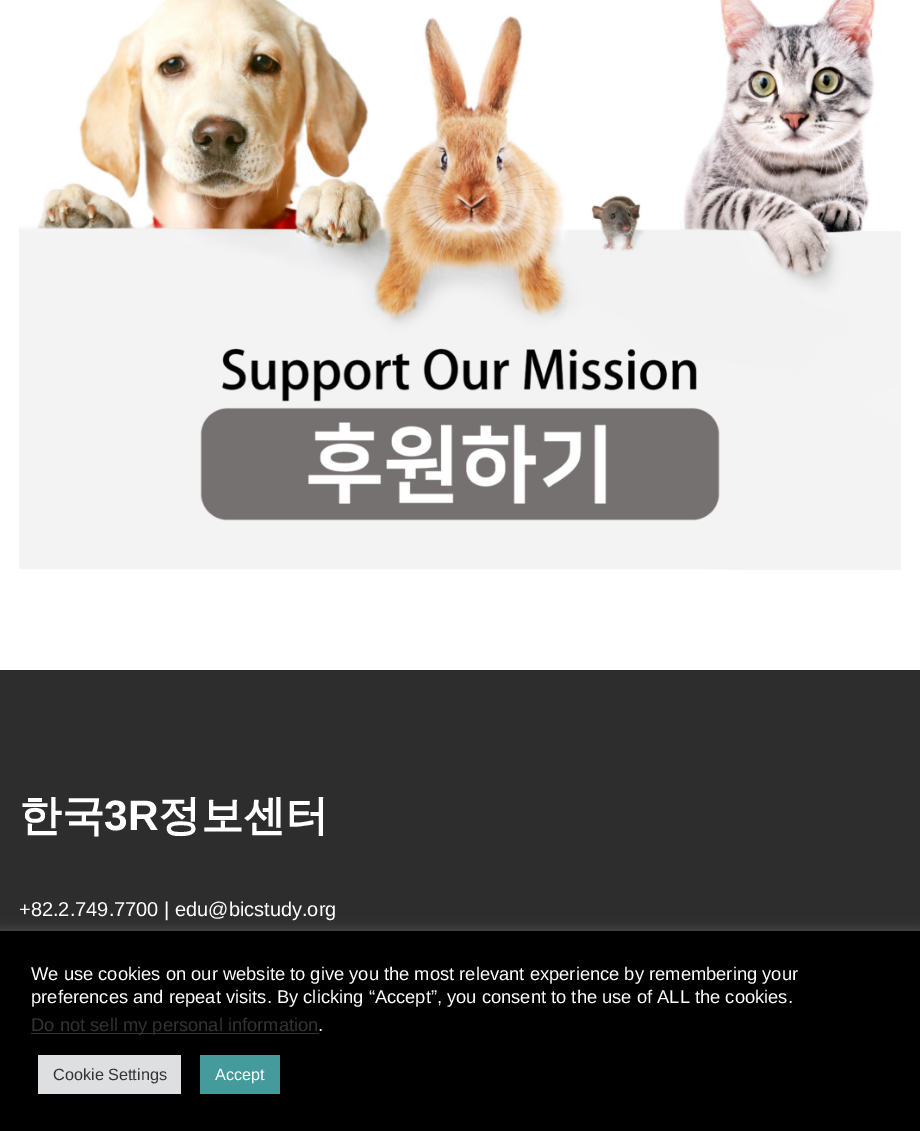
%!PS
<< /PageSize [920 1131] /PageUsesTransparency true >> setpagedevice
/rgb { 3 { 255 div 3 1 roll } repeat setrgbcolor } def
/font { [ exch dup neg 0 0 3 -1 roll 0 0 ] selectfont } def
/alpha { dup .setfillconstantalpha .setstrokeconstantalpha } def
/roundrect { 5 dict begin { /r /h /w /y /x } { exch def } forall
  x r add y moveto x w add y 2 copy h add r arct x w add y h add x 1 index r arct
  x y h add x y r arct x y 2 copy exch w add exch r arct closepath end } def
/shadow { 12 dict begin { /a /b /q /h /w /y /x } { exch def } forall gsave /was 0 def
  9 -2 -9 { dup b mul 4 div /e exch def 1 sub .425 mul 2.718 exch exp 1 add a .99 .min exch div /now exch def
    1 1 now sub 1 was sub div sub alpha /was now def
    w h .min e 2 mul add 0 gt { x e sub y e sub w e 2 mul add h e 2 mul add
      q e add b .6 mul add w h .min 2 div e add .min 0 .max roundrect fill } if } for grestore end } def
/picture { 5 dict begin { /h /w /y /x /name } { exch def } forall
  gsave x y translate w h scale
  w h 8 [w 0 0 h 0 0] name (r) file false 3 colorimage grestore end } def
0 .pushpdf14devicefilter
0 1131 translate 1 -1 scale
4 setmiterlimit
255 255 255 rgb
0 0 920 1131 rectfill
(img/1.rgb) 19 0 882 570 picture
45 45 45 rgb
0 670 920 261 rectfill
172 171 171 rgb
0 930 920 200 0 6 0.3 shadow
[
  [0 931 920 200 0 0 0]
  [31 1033 288 1 51 51 51]
  [38 1055 143 39 222 223 224]
  [200 1055 80 39 69 155 155]
] { aload pop rgb rectfill } forall
/WenQuanYiZenHei-Bold 42.5 font
255 255 255 rgb
19 830 moveto (한국) show
/LiberationSans-Bold 42.5 font
104 830 moveto (3R) show
/WenQuanYiZenHei-Bold 42.5 font
158 830 moveto (정보센터) show
/LiberationSans-Regular 20 font
19 916 moveto (+82.2.749.7700 | edu@bicstudy.org) show
/LiberationSans-Regular 18.35 font
31 980 moveto (We use cookies on our website to give you the most relevant experience by remembering your) show
31 1003 moveto (preferences and repeat visits. By clicking “Accept”, you consent to the use of ALL the cookies.) show
51 51 51 rgb
31 1031 moveto (Do not sell my personal information) show
255 255 255 rgb
318 1031 moveto (.) show
/LiberationSans-Regular 16.25 font
51 51 51 rgb
53 1080 moveto (Cookie Settings) show
255 255 255 rgb
215 1080 moveto (Accept) show
.poppdf14devicefilter showpage
